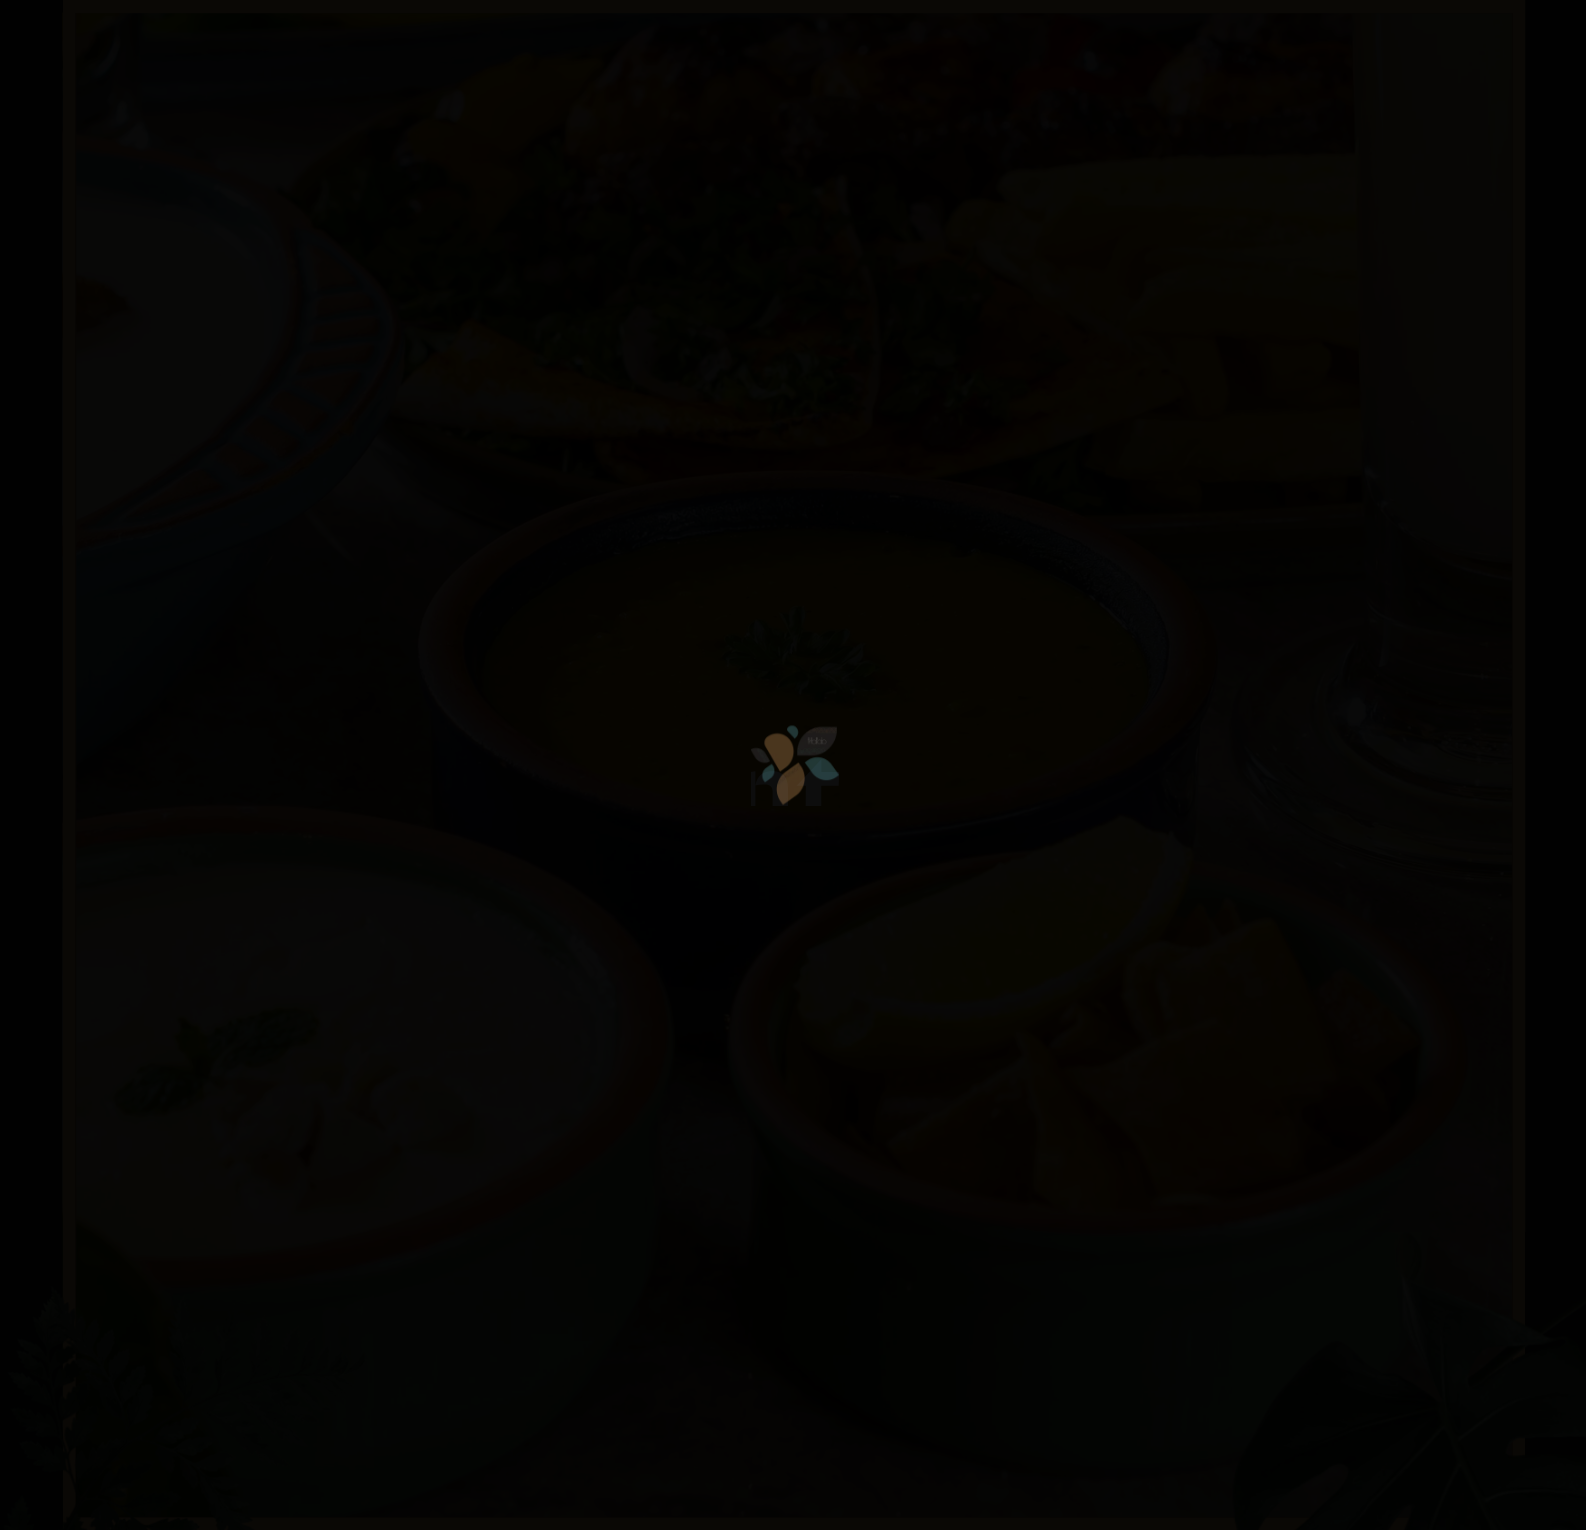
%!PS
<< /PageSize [1586 1530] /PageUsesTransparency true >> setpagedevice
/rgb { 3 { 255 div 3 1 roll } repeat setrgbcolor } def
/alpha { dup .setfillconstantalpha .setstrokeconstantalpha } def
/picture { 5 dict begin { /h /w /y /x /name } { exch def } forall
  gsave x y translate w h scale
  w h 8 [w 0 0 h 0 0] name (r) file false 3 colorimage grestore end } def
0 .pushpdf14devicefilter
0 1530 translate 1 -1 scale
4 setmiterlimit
1 1 1 rgb
0 0 1586 1530 rectfill
(img/1.rgb) 62 12 1450 1506 picture
10 8 5 rgb
13 setlinewidth
69.5 6.5 1449 1517 rectstroke
0.33 alpha
0 0 0 rgb
75 13 1438 1505 rectfill
1 alpha
(img/2.rgb) 3 1285 371 245 picture
(img/3.rgb) 1232 1232 354 298 picture
(img/4.rgb) 751 725 88 81 picture
.poppdf14devicefilter showpage
